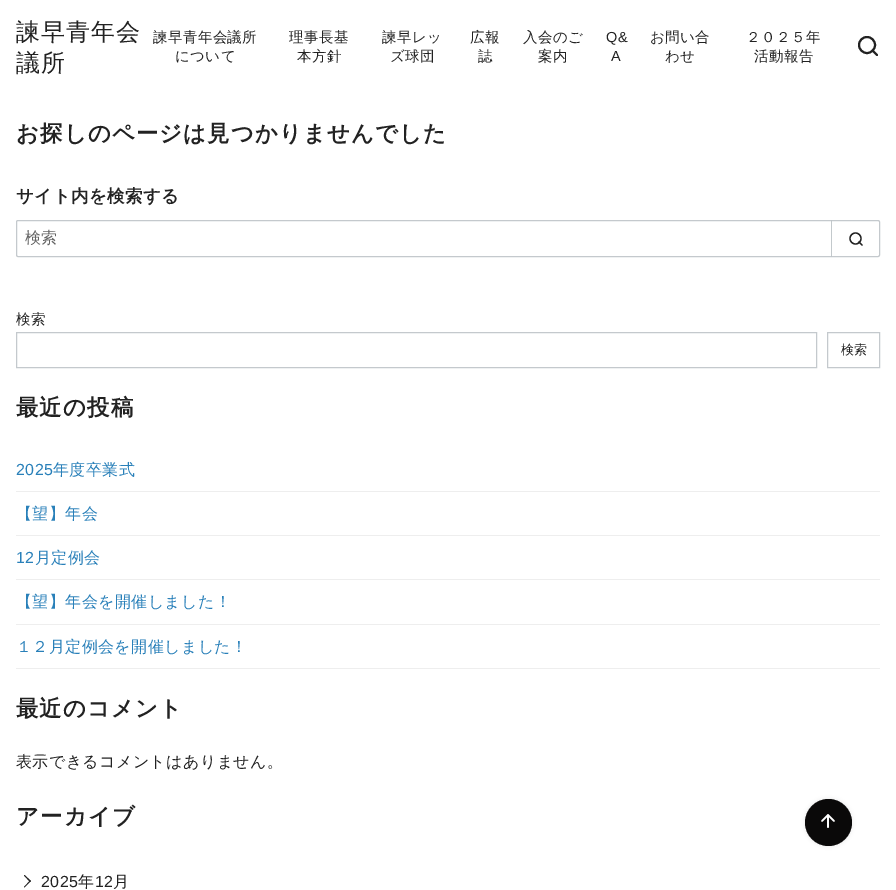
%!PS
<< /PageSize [896 890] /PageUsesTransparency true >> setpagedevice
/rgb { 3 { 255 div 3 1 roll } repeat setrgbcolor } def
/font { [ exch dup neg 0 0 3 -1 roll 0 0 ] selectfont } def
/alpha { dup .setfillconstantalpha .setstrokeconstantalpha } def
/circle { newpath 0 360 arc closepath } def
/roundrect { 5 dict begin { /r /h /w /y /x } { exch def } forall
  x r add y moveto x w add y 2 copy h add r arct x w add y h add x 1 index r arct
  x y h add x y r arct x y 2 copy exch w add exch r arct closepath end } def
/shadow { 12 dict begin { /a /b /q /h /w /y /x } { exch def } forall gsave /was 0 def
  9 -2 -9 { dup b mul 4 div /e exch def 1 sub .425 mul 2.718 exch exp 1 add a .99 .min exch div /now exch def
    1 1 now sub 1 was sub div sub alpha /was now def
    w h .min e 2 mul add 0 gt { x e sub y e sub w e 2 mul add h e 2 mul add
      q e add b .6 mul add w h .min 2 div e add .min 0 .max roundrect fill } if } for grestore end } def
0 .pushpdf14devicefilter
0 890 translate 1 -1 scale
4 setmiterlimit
255 255 255 rgb
0 0 896 890 rectfill
34 34 34 rgb
2 setlinewidth
867 45 8 circle stroke
1 setlinecap
1 setlinejoin
877 55 moveto 872.5 50.5 lineto stroke
196 201 205 rgb
1 setlinewidth
0 setlinecap
0 setlinejoin
16.5 220.5 863 36 1.5 roundrect stroke
0.9 alpha
189 195 199 rgb
831 220 1 37 rectfill
1 alpha
34 34 34 rgb
1.3 setlinewidth
855.5 238.5 5.5 circle stroke
1 setlinecap
1 setlinejoin
862 245 moveto 859 242 lineto stroke
196 201 205 rgb
1 setlinewidth
0 setlinecap
0 setlinejoin
16.5 332.5 800 35 rectstroke
827.5 332.5 52 35 rectstroke
[
  [16 491 864 1 238 238 238]
  [16 535 864 1 238 238 238]
  [16 579 864 1 238 238 238]
  [16 624 864 1 238 238 238]
  [16 668 864 1 238 238 238]
] { aload pop rgb rectfill } forall
34 34 34 rgb
24 875.5 moveto 24.5 875 lineto 31 881 lineto 30 882 lineto closepath fill
24 887 moveto 30 880.5 lineto 31 881 lineto 24.5 887.5 lineto closepath fill
0 0 0 rgb
805 799 47 47 23.5 2 0.1 shadow
10 9 9 rgb
828.5 822.5 23.5 circle fill
255 255 255 rgb
1.7 setlinewidth
1 setlinecap
1 setlinejoin
828 827 moveto 828 815 lineto 822 821 moveto 828 815 lineto 834 821 lineto stroke
/WenQuanYiZenHei-Medium 24 font
34 34 34 rgb
16 40 moveto 1 0 (諫早青年会) ashow
16 71 moveto 1 0 (議所) ashow
/WenQuanYiZenHei-Medium 14.5 font
153 42 moveto 0.4 0 (諫早青年会議所) ashow
175 61 moveto 0.4 0 (について) ashow
289 42 moveto 0.4 0 (理事長基) ashow
297 61 moveto 0.4 0 (本方針) ashow
382 42 moveto 0.4 0 (諫早レッ) ashow
390 61 moveto 0.4 0 (ズ球団) ashow
470 42 moveto 0.4 0 (広報) ashow
478 61 moveto 0.4 0 (誌) ashow
523 42 moveto 0.4 0 (入会のご) ashow
538 61 moveto 0.4 0 (案内) ashow
/LiberationSans-Regular 14.5 font
606 42 moveto 0.4 0 (Q&) ashow
611 61 moveto 0.4 0 (A) ashow
/WenQuanYiZenHei-Medium 14.5 font
650 42 moveto 0.4 0 (お問い合) ashow
665 61 moveto 0.4 0 (わせ) ashow
746 42 moveto 0.4 0 (２０２５年) ashow
754 61 moveto 0.4 0 (活動報告) ashow
/WenQuanYiZenHei-Bold 22.4 font
16 141 moveto 1.1 0 (お探しのページは見つかりませんでした) ashow
/WenQuanYiZenHei-Bold 17.5 font
16 202 moveto 0.4 0 (サイト内を検索する) ashow
/WenQuanYiZenHei-Medium 16 font
100 100 100 rgb
25 243 moveto (検索) show
/WenQuanYiZenHei-Medium 14.5 font
34 34 34 rgb
16 324 moveto 0.4 0 (検索) ashow
/WenQuanYiZenHei-Medium 13 font
841 354 moveto (検索) show
/WenQuanYiZenHei-Bold 22.4 font
16 415 moveto 1.1 0 (最近の投稿) ashow
/LiberationSans-Regular 16 font
41 128 185 rgb
16 475 moveto 0.4 0 (2025) ashow
/WenQuanYiZenHei-Medium 16 font
53 475 moveto 0.4 0 (年度卒業式) ashow
16 519 moveto 0.4 0 (【望】年会) ashow
/LiberationSans-Regular 16 font
16 563 moveto 0.4 0 (12) ashow
/WenQuanYiZenHei-Medium 16 font
35 563 moveto 0.4 0 (月定例会) ashow
16 607 moveto 0.4 0 (【望】年会を開催しました！) ashow
16 652 moveto 0.4 0 (１２月定例会を開催しました！) ashow
/WenQuanYiZenHei-Bold 22.4 font
34 34 34 rgb
16 716 moveto 1.1 0 (最近のコメント) ashow
/WenQuanYiZenHei-Medium 16 font
16 767 moveto 0.4 0 (表示できるコメントはありません。) ashow
/WenQuanYiZenHei-Bold 22.4 font
16 824 moveto 1.1 0 (アーカイブ) ashow
/LiberationSans-Regular 16 font
41 887 moveto 0.4 0 (2025) ashow
/WenQuanYiZenHei-Medium 16 font
78 887 moveto 0.4 0 (年) ashow
/LiberationSans-Regular 16 font
95 887 moveto 0.4 0 (12) ashow
/WenQuanYiZenHei-Medium 16 font
113 887 moveto 0.4 0 (月) ashow
.poppdf14devicefilter showpage
